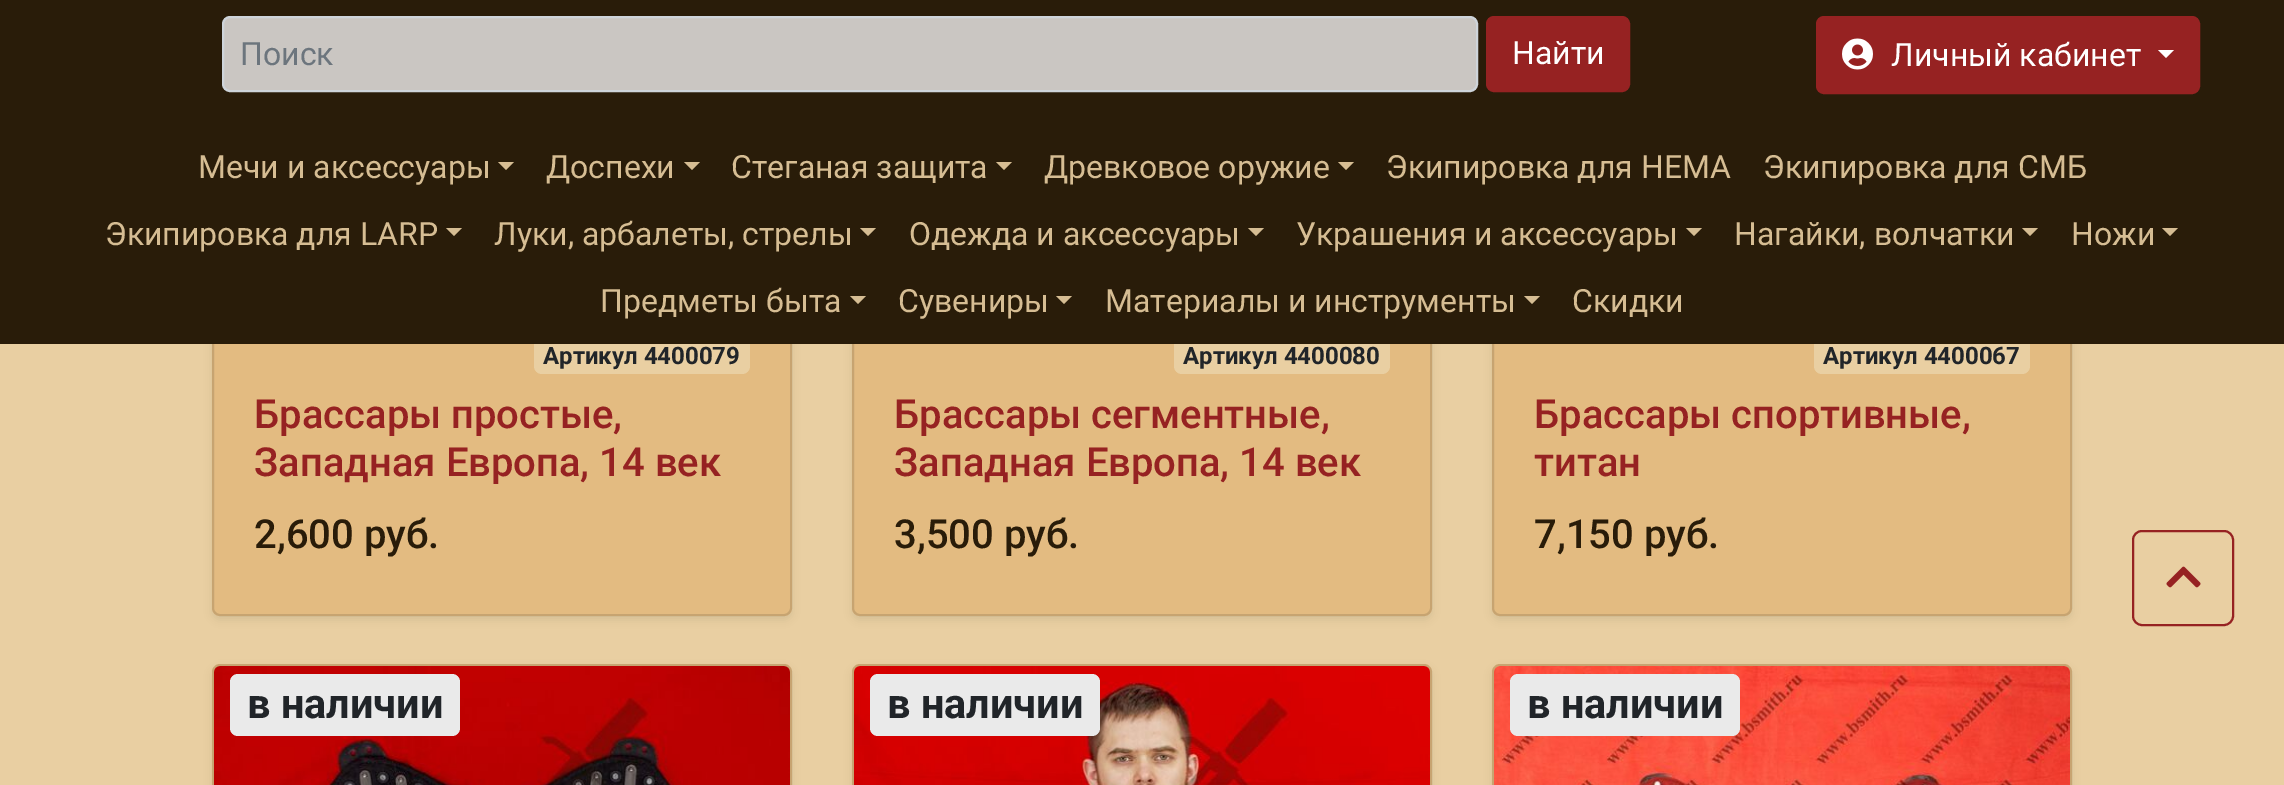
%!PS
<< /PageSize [2284 785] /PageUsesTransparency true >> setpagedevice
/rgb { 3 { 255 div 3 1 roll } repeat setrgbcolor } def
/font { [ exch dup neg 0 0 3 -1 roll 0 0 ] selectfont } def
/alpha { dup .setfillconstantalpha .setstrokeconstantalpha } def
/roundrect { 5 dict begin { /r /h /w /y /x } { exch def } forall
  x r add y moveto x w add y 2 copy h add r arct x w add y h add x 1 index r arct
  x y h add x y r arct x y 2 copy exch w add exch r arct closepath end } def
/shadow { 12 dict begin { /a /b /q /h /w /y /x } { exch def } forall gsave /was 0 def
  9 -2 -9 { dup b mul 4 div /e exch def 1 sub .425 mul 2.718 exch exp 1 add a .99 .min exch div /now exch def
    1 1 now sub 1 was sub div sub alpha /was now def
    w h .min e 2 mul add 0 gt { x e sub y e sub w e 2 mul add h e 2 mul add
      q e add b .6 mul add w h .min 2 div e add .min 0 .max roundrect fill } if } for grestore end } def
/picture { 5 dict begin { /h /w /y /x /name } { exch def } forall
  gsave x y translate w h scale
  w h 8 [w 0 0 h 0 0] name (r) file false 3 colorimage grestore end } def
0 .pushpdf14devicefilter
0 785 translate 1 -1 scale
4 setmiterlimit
233 207 162 rgb
0 0 2284 785 rectfill
0 0 0 rgb
212 -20 580 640 8 4 0.07 shadow
227 187 129 rgb
212 -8 580 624 8 roundrect fill
0.12 alpha
0 0 0 rgb
2 setlinewidth
213 -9 578 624 7 roundrect stroke
1 alpha
233 207 162 rgb
534 338 216 36 8 roundrect fill
0 0 0 rgb
852 -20 580 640 8 4 0.07 shadow
227 187 129 rgb
852 -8 580 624 8 roundrect fill
0.12 alpha
0 0 0 rgb
853 -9 578 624 7 roundrect stroke
1 alpha
233 207 162 rgb
1174 338 216 36 8 roundrect fill
0 0 0 rgb
1492 -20 580 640 8 4 0.07 shadow
227 187 129 rgb
1492 -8 580 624 8 roundrect fill
0.12 alpha
0 0 0 rgb
1493 -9 578 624 7 roundrect stroke
1 alpha
233 207 162 rgb
1814 338 216 36 8 roundrect fill
41 28 9 rgb
0 0 2284 344 rectfill
202 198 194 rgb
223 17 1254 74 7 roundrect gsave fill grestore
206 212 218 rgb
stroke
150 34 34 rgb
1487 17 142 74 7 roundrect gsave fill grestore
stroke
1817 17 382 76 7 roundrect gsave fill grestore
stroke
(img/1.rgb) 1842 38 31 32 picture
255 255 255 rgb
2158 50 moveto 2174 50 lineto 2166 58 lineto closepath fill
214 189 147 rgb
498 162 moveto 514 162 lineto 506 170 lineto closepath fill
684 162 moveto 700 162 lineto 692 170 lineto closepath fill
996 162 moveto 1012 162 lineto 1004 170 lineto closepath fill
1338 162 moveto 1354 162 lineto 1346 170 lineto closepath fill
446 228 moveto 462 228 lineto 454 236 lineto closepath fill
860 228 moveto 876 228 lineto 868 236 lineto closepath fill
1248 228 moveto 1264 228 lineto 1256 236 lineto closepath fill
1686 228 moveto 1702 228 lineto 1694 236 lineto closepath fill
2022 228 moveto 2038 228 lineto 2030 236 lineto closepath fill
2162 228 moveto 2178 228 lineto 2170 236 lineto closepath fill
850 296 moveto 866 296 lineto 858 304 lineto closepath fill
1056 296 moveto 1072 296 lineto 1064 304 lineto closepath fill
1524 296 moveto 1540 296 lineto 1532 304 lineto closepath fill
0 0 0 rgb
212 668 580 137 8 4 0.07 shadow
227 187 129 rgb
212 664 580 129 8 roundrect fill
0.12 alpha
0 0 0 rgb
213 665 578 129 7 roundrect stroke
1 alpha
(img/2.rgb) 214 666 576 119 picture
234 234 234 rgb
230 674 230 62 8 roundrect fill
0 0 0 rgb
852 668 580 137 8 4 0.07 shadow
227 187 129 rgb
852 664 580 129 8 roundrect fill
0.12 alpha
0 0 0 rgb
853 665 578 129 7 roundrect stroke
1 alpha
(img/3.rgb) 854 666 576 119 picture
234 234 234 rgb
870 674 230 62 8 roundrect fill
0 0 0 rgb
1492 668 580 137 8 4 0.07 shadow
227 187 129 rgb
1492 664 580 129 8 roundrect fill
0.12 alpha
0 0 0 rgb
1493 665 578 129 7 roundrect stroke
1 alpha
(img/4.rgb) 1494 666 576 119 picture
234 234 234 rgb
1510 674 230 62 8 roundrect fill
150 34 34 rgb
2133 531 100 94 9 roundrect stroke
(img/5.rgb) 2166 566 35 22 picture
/Roboto-Regular 32 font
108 117 125 rgb
240 65 moveto (Поиск) show
255 255 255 rgb
1512 64 moveto (Найти) show
1891 66 moveto (Личный кабинет) show
214 189 147 rgb
[
  [(Мечи и аксессуары) 198 178]
  [(Доспехи) 546 178]
  [(Стеганая защита) 731 178]
  [(Древковое оружие) 1044 178]
  [(Экипировка для HEMA) 1386 178]
  [(Экипировка для СМБ) 1763 178]
  [(Экипировка для LARP) 105 245]
  [(Луки, арбалеты, стрелы) 494 245]
  [(Одежда и аксессуары) 909 245]
  [(Украшения и аксессуары) 1296 245]
  [(Нагайки, волчатки) 1734 245]
  [(Ножи) 2071 245]
  [(Предметы быта) 600 312]
  [(Сувениры) 898 312]
  [(Материалы и инструменты) 1105 312]
  [(Скидки) 1572 312]
] { aload pop moveto show } forall
/Roboto-Bold 24 font
33 37 41 rgb
543 364 moveto (Артикул 4400079) show
/Roboto-Medium 40 font
150 34 34 rgb
254 428 moveto (Брассары простые,) show
254 476 moveto (Западная Европа, 14 век) show
41 28 9 rgb
254 548 moveto (2,600 pуб.) show
/Roboto-Bold 24 font
33 37 41 rgb
1183 364 moveto (Артикул 4400080) show
/Roboto-Medium 40 font
150 34 34 rgb
894 428 moveto (Брассары сегментные,) show
894 476 moveto (Западная Европа, 14 век) show
41 28 9 rgb
894 548 moveto (3,500 pуб.) show
/Roboto-Bold 24 font
33 37 41 rgb
1823 364 moveto (Артикул 4400067) show
/Roboto-Medium 40 font
150 34 34 rgb
1534 428 moveto (Брассары спортивные,) show
1534 476 moveto (титан) show
41 28 9 rgb
1534 548 moveto (7,150 pуб.) show
/Roboto-Bold 41.5 font
33 37 41 rgb
[
  [(в наличии) 247 718]
  [(в наличии) 887 718]
  [(в наличии) 1527 718]
] { aload pop moveto show } forall
.poppdf14devicefilter showpage
